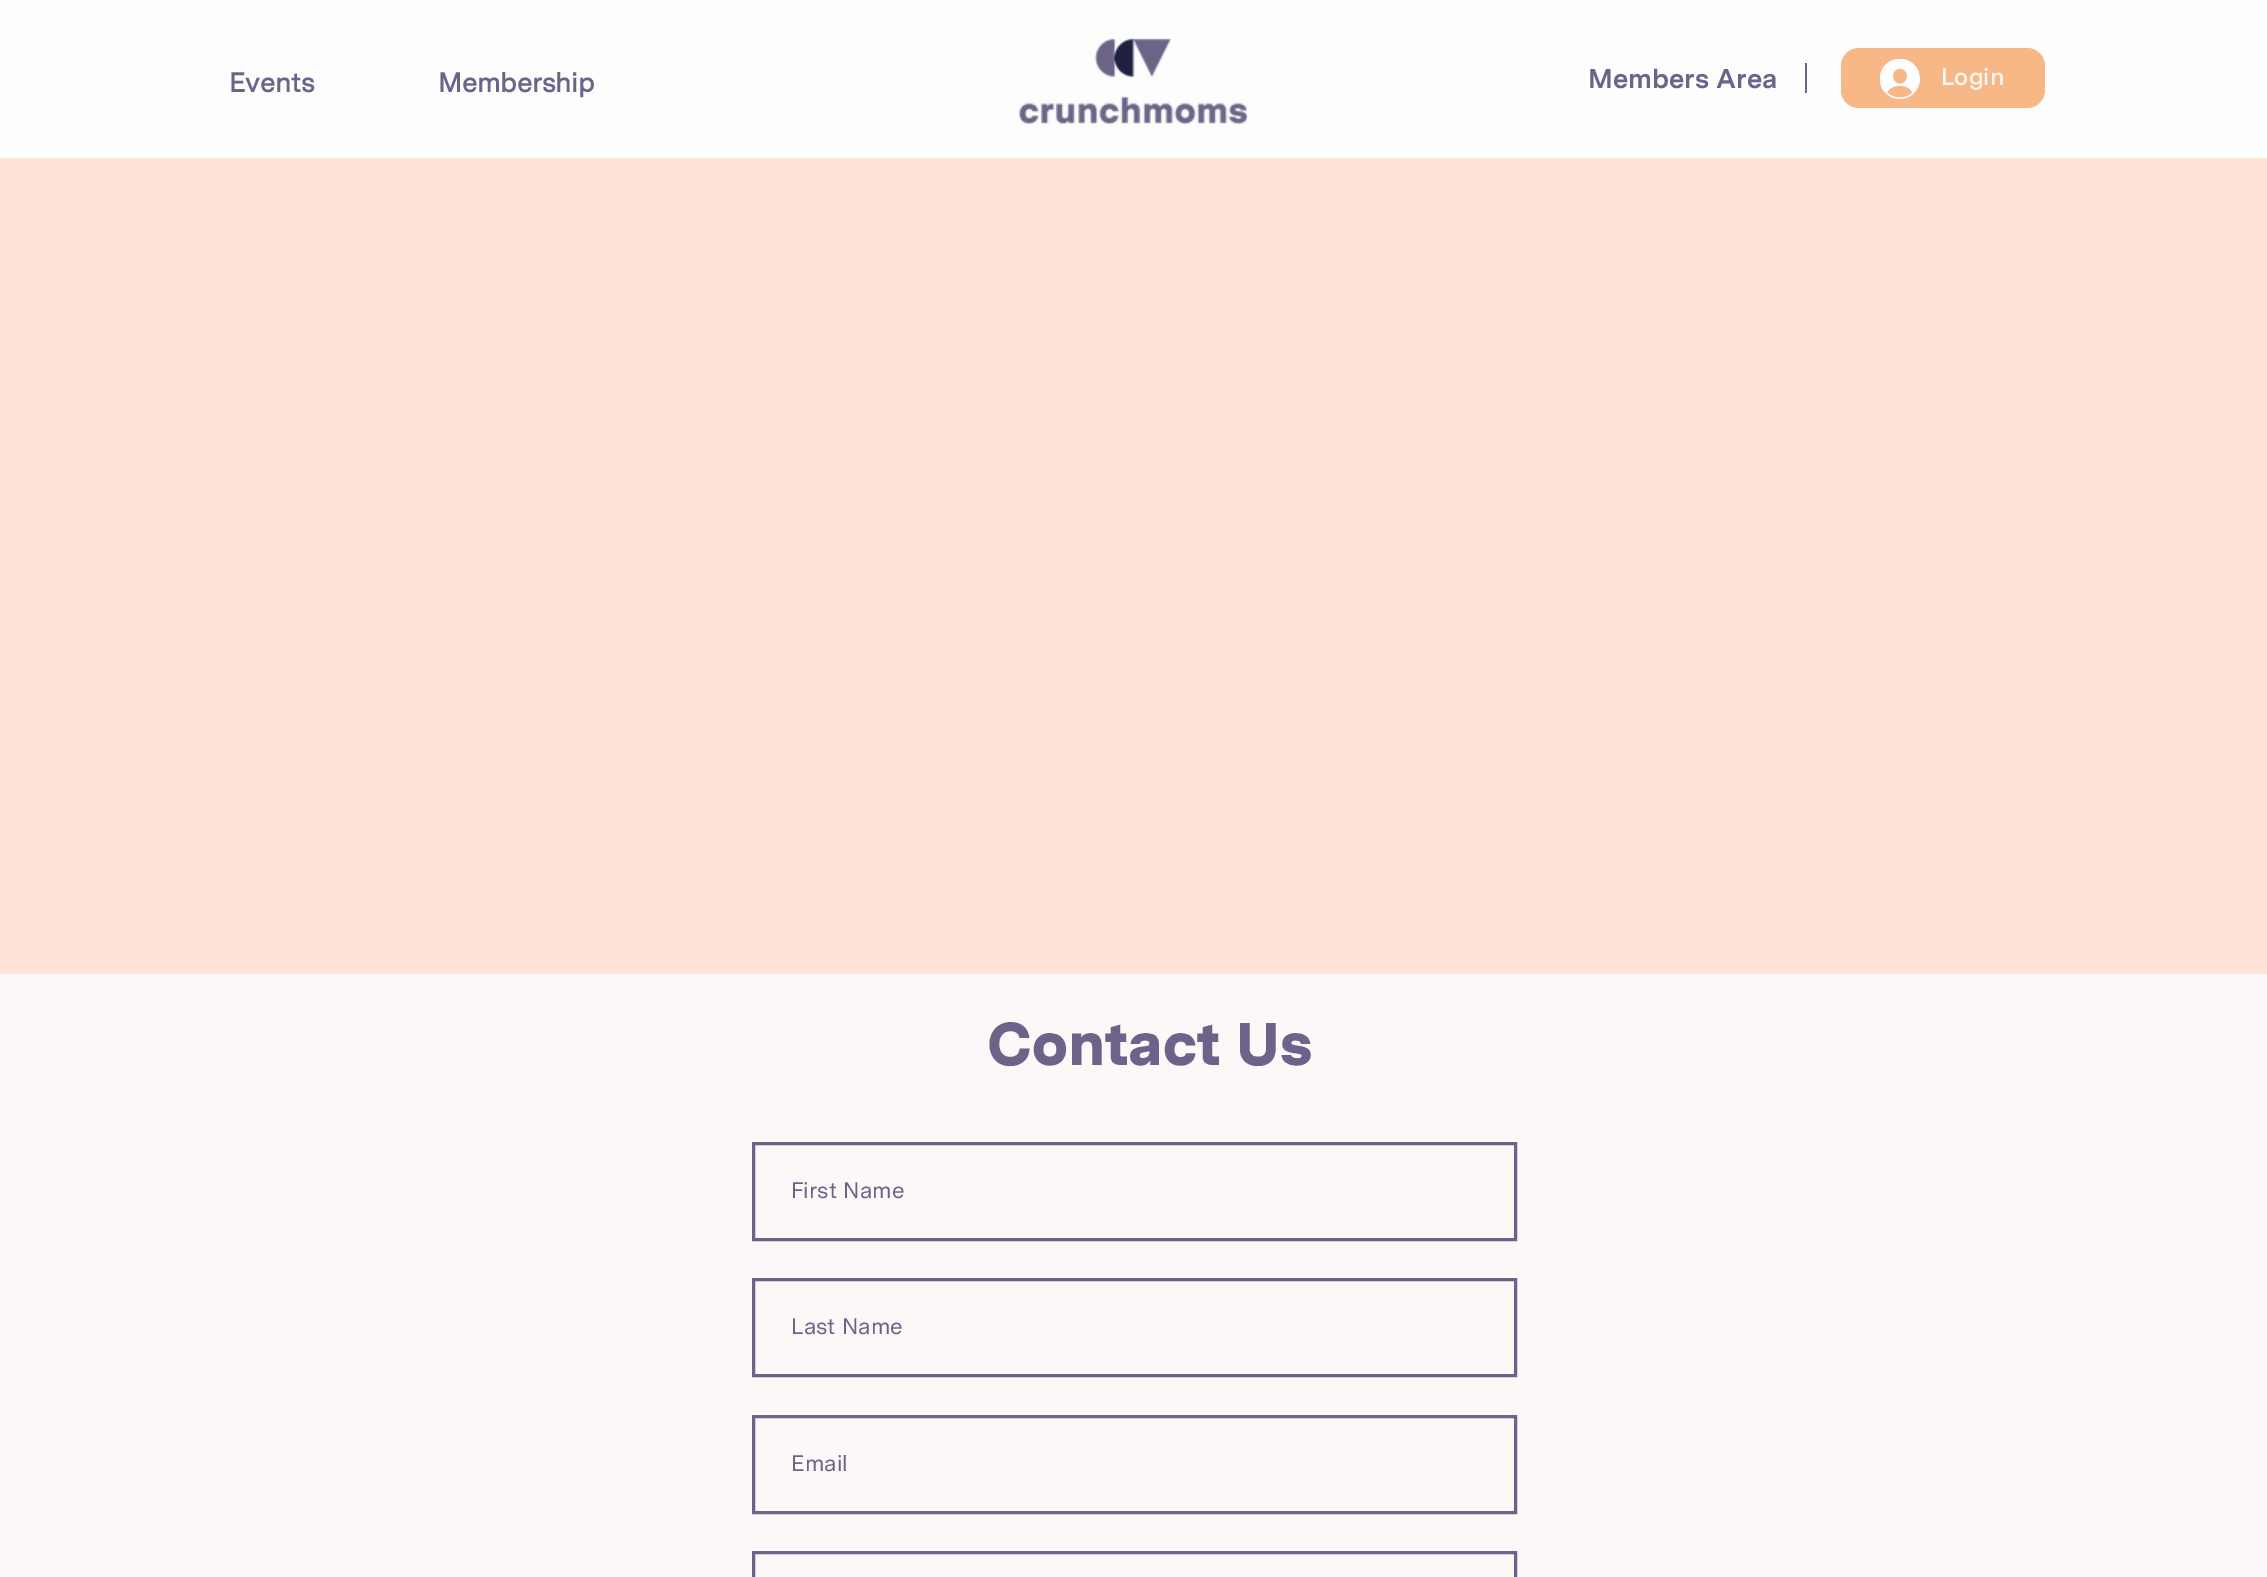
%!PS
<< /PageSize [2267 1577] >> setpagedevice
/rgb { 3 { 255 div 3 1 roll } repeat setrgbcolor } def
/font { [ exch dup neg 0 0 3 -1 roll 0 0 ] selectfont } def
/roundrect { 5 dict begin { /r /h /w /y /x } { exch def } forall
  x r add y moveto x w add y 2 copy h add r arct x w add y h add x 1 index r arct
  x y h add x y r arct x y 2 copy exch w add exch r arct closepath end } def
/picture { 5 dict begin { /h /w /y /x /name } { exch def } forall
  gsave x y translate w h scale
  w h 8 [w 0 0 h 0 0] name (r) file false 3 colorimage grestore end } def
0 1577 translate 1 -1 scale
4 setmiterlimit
251 254 253 rgb
0 0 2267 1577 rectfill
(img/1.rgb) 1018 38 231 87 picture
109 99 138 rgb
1805 63 2 30 rectfill
247 183 135 rgb
1841 48 204 60 18 roundrect fill
(img/2.rgb) 1880 59 40 40 picture
252 248 248 rgb
0 974 2267 603 rectfill
255 227 214 rgb
0 158 2267 816 rectfill
109 99 138 rgb
3 setlinewidth
753.5 1143.5 762 96 rectstroke
753.5 1279.5 762 96 rectstroke
753.5 1416.5 762 96 rectstroke
753.5 1552.5 762 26 rectstroke
/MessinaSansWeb-Bold 27 font
229 92 moveto (Events) show
438 92 moveto (Membership) show
/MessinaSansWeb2-Bold 27 font
1588 88 moveto (Members Area) show
/MessinaSansWeb-SemiBold 24 font
254 247 244 rgb
1941 85 moveto (Login) show
/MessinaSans-Black 60 font
109 99 138 rgb
987 1065 moveto (Contact Us) show
/MessinaSansWeb-Regular 22.5 font
[
  [(First Name) 791 1198]
  [(Last Name) 791 1334]
  [(Email) 791 1471]
] { aload pop moveto show } forall
showpage
